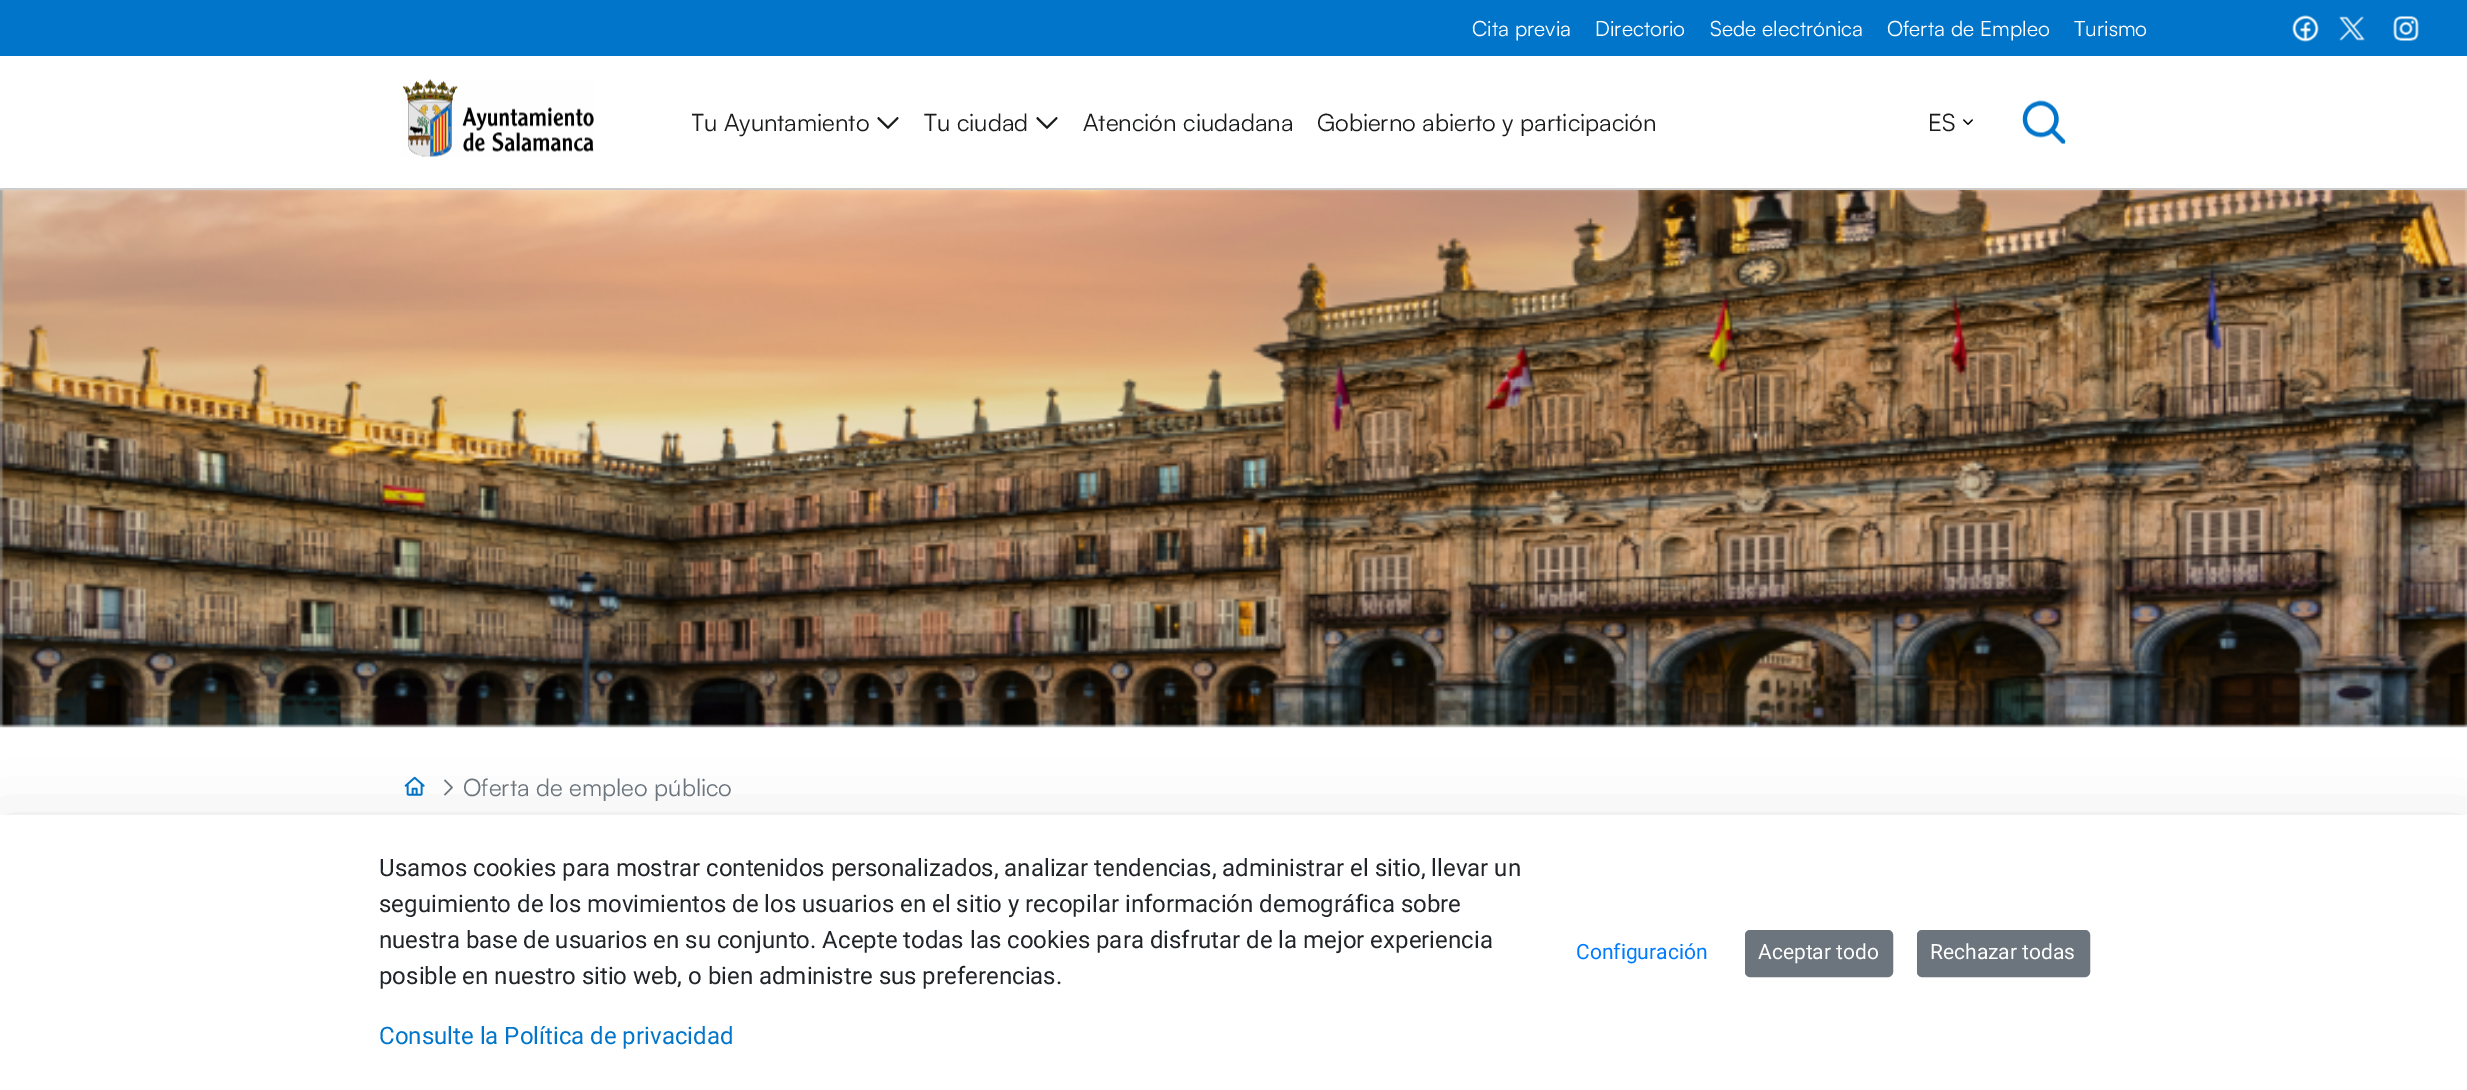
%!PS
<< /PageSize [2467 1090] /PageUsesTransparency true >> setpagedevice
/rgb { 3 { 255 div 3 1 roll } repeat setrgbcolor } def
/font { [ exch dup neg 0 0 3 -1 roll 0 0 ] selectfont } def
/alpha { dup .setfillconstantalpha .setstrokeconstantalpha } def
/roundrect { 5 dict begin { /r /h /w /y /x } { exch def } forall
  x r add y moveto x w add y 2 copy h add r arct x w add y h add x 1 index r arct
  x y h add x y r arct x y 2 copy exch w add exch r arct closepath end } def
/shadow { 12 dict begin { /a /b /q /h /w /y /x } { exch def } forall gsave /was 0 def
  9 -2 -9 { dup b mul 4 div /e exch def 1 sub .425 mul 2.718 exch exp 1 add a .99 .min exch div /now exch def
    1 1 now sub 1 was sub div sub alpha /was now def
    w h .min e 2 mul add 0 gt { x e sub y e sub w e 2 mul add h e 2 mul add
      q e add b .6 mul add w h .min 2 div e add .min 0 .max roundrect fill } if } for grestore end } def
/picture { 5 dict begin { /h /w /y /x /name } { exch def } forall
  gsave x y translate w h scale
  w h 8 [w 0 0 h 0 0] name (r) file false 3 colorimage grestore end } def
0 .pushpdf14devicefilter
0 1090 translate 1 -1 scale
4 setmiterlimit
255 255 255 rgb
0 0 2467 1090 rectfill
0 117 201 rgb
0 0 2467 56 rectfill
(img/1.rgb) 2292 15 27 27 picture
(img/2.rgb) 2339 16 26 25 picture
(img/3.rgb) 2393 16 26 25 picture
204 204 204 rgb
0 188 2467 2 rectfill
(img/4.rgb) 402 79 192 78 picture
(img/5.rgb) 877 117 22 12 picture
(img/6.rgb) 1036 117 22 12 picture
(img/7.rgb) 1963 119 10 6 picture
(img/8.rgb) 2022 100 44 44 picture
(img/9.rgb) 0 190 2467 538 picture
(img/10.rgb) 404 776 21 20 picture
(img/11.rgb) 444 779 9 17 picture
0 0 0 rgb
0 839 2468 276 0 36 0.18 shadow
255 255 255 rgb
0 815 2467 275 rectfill
108 117 125 rgb
1746 931 146 45 4 roundrect gsave fill grestore
2 setlinewidth
stroke
1918 931 171 45 4 roundrect gsave fill grestore
stroke
/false-Regular 21 font
255 255 255 rgb
[
  [(Cita previa) 1472 36]
  [(Directorio) 1595 36]
  [(Sede electrónica) 1710 36]
  [(Oferta de Empleo) 1887 36]
  [(Turismo) 2074 36]
] { aload pop moveto show } forall
gsave
692 104 208 36 rectclip
/false-Regular 24 font
26 27 28 rgb
691 131 moveto (Tu Ayuntamiento) show
grestore
/false-Regular 24 font
26 27 28 rgb
[
  [(Tu ciudad) 924 131]
  [(Atención ciudadana) 1083 131]
  [(Gobierno abierto y participación) 1317 131]
  [(ES) 1928 131]
] { aload pop moveto show } forall
gsave
464 770 268 36 rectclip
108 117 125 rgb
463 796 moveto (Oferta de empleo público) show
grestore
/Roboto-Regular 24 font
33 37 41 rgb
[
  [(Usamos cookies para mostrar contenidos personalizados, analizar tendencias, administrar el sitio, llevar un) 379 876]
  [(seguimiento de los movimientos de los usuarios en el sitio y recopilar información demográfica sobre) 379 912]
  [(nuestra base de usuarios en su conjunto. Acepte todas las cookies para disfrutar de la mejor experiencia) 379 948]
  [(posible en nuestro sitio web, o bien administre sus preferencias.) 379 984]
] { aload pop moveto show } forall
0 117 201 rgb
379 1044 moveto (Consulte la Política de privacidad) show
/Roboto-Regular 21 font
0 123 255 rgb
1576 959 moveto (Configuración) show
255 255 255 rgb
1758 959 moveto (Aceptar todo) show
1930 959 moveto (Rechazar todas) show
.poppdf14devicefilter showpage
